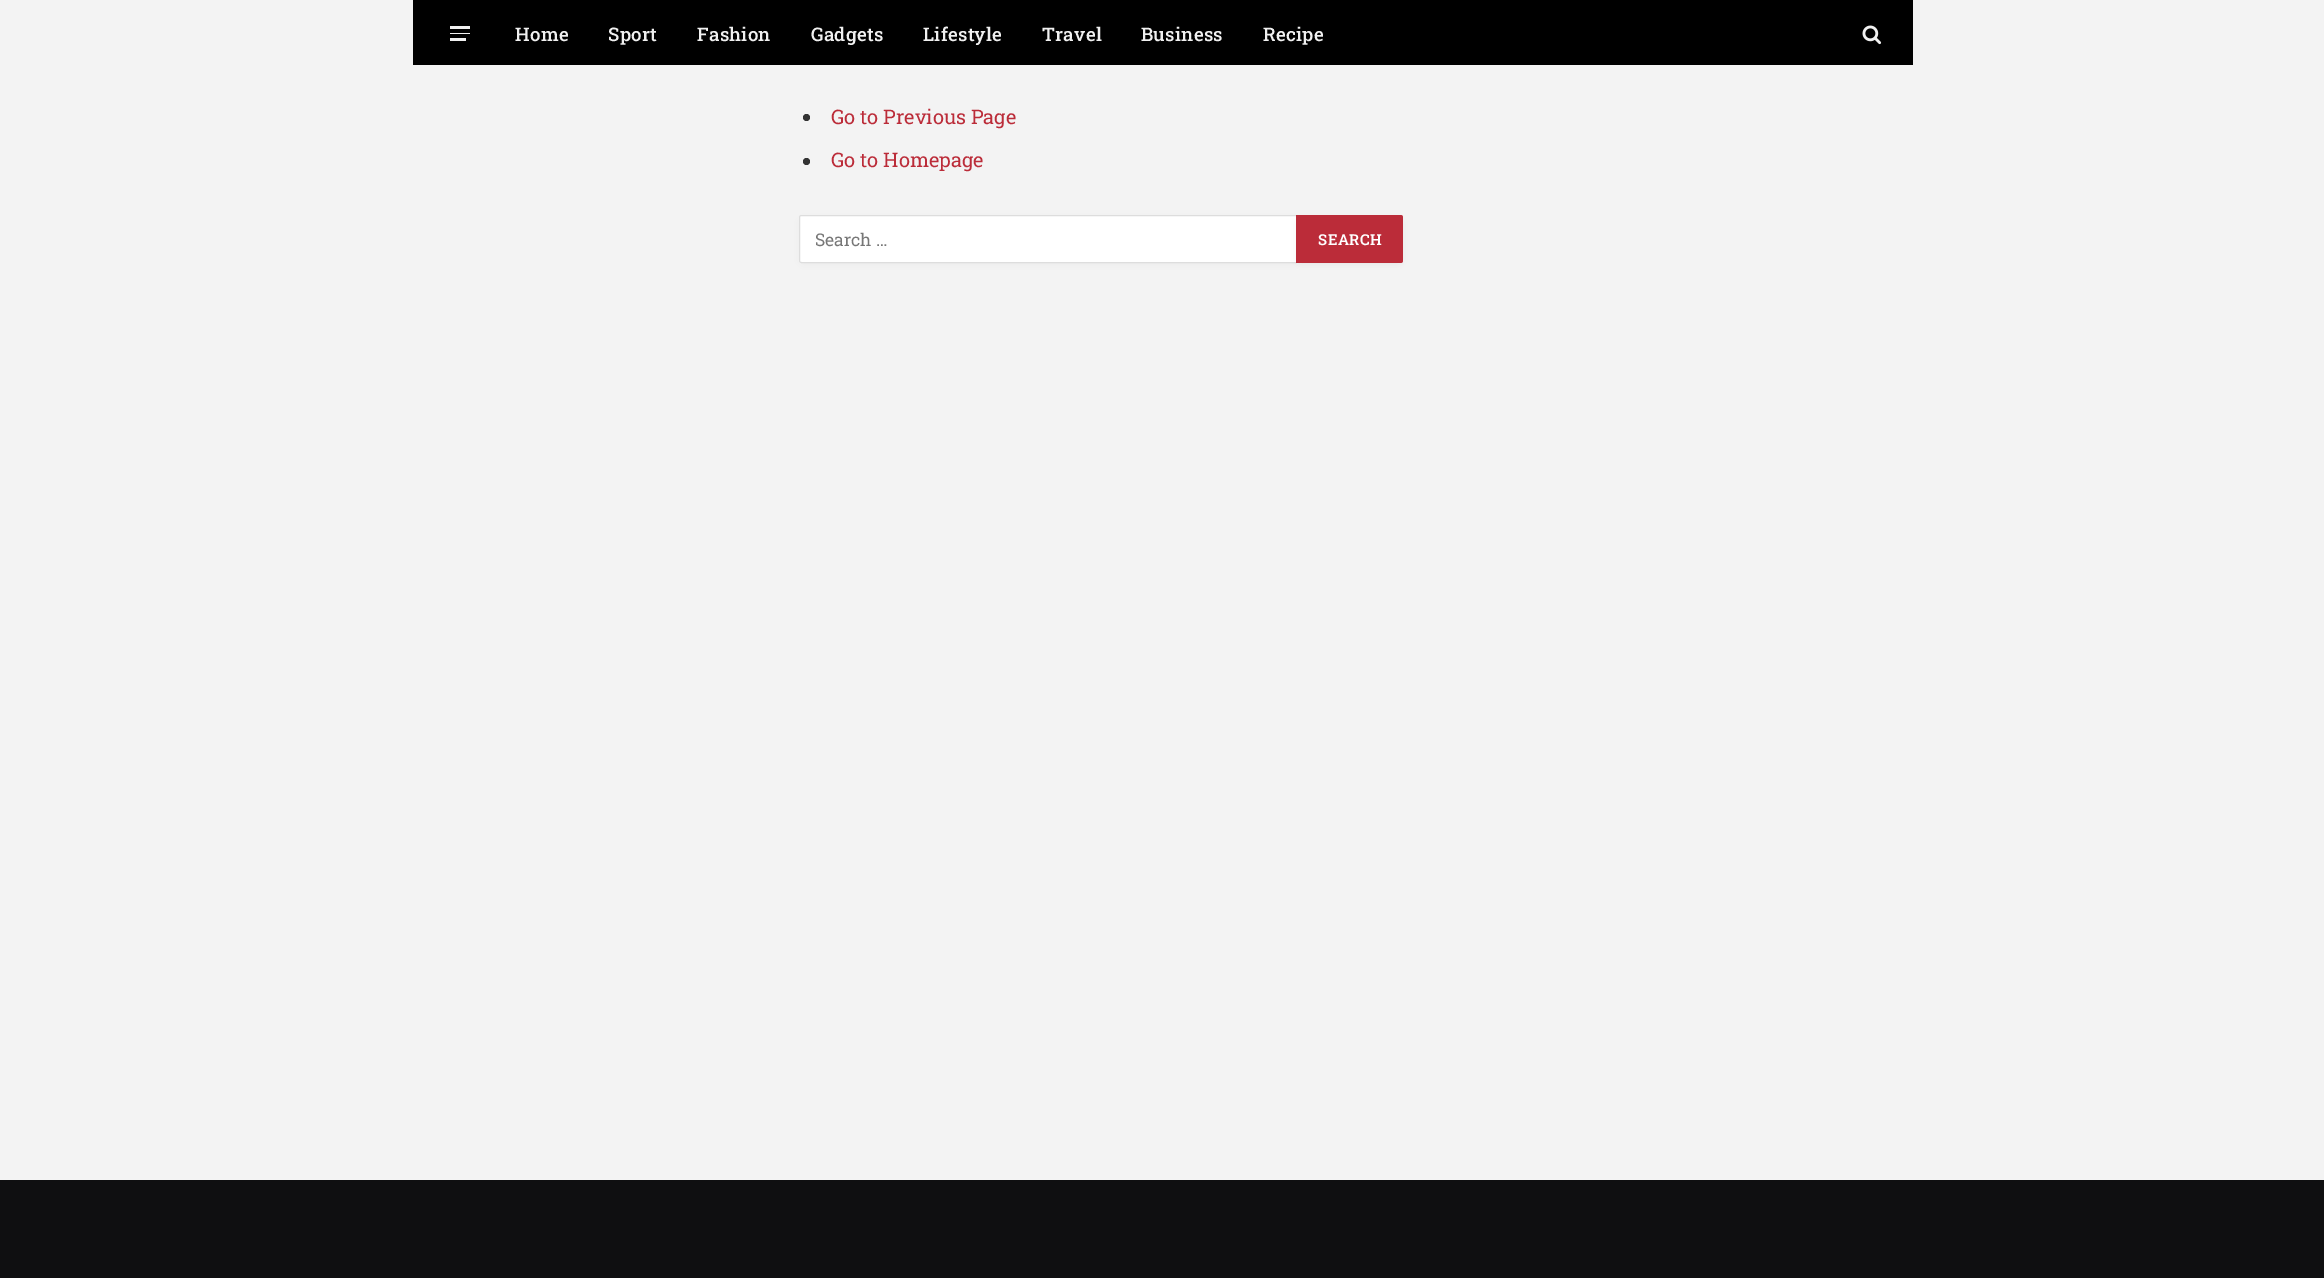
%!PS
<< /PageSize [2324 1278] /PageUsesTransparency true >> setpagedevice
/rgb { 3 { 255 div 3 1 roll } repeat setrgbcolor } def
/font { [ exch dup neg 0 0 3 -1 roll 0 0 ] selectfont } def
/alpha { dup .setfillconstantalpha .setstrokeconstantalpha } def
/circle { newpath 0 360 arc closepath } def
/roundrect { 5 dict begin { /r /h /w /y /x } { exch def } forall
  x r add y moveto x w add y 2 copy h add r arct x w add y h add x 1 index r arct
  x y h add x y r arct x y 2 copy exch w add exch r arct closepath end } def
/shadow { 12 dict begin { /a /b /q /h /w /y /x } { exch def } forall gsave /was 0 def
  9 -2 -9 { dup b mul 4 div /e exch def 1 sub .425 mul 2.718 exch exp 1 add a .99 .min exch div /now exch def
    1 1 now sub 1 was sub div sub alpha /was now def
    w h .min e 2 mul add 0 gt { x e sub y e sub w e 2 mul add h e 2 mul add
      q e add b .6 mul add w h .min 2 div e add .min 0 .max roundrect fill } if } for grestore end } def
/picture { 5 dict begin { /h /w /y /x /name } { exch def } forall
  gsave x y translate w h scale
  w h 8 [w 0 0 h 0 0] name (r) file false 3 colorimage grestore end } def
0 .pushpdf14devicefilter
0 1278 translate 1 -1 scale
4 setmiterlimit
243 243 243 rgb
0 0 2324 1278 rectfill
[
  [413 0 1500 65 0 0 0]
  [450 38 16 3 240 240 240]
  [450 26 20 3 240 240 240]
  [450 33 20 1 240 240 240]
] { aload pop rgb rectfill } forall
(img/1.rgb) 1862 25 20 20 picture
51 51 51 rgb
806.5 117.5 3.5 circle fill
806.5 161.5 3.5 circle fill
0 0 0 rgb
804 223 490 37 0 4.5 0.1 shadow
255 255 255 rgb
799.5 215.5 499 47 2 roundrect gsave fill grestore
221 221 221 rgb
stroke
0 0 0 rgb
1301 223 97 37 0 4.5 0.16 shadow
187 44 57 rgb
1296 215 moveto 1400.5 215 lineto 1402 215 1403 216 1403 217.5 curveto 1403 260.5 lineto 1403 262 1402 263 1400.5 263 curveto 1296 263 lineto closepath fill
15 15 17 rgb
0 1180 2324 98 rectfill
/RobotoSlab-Medium 18.75 font
240 240 240 rgb
515 41 moveto 0.25 0 (Home) ashow
608 41 moveto 0.25 0 (Sport) ashow
697 41 moveto 0.25 0 (Fashion) ashow
811 41 moveto 0.25 0 (Gadgets) ashow
923 41 moveto 0.25 0 (Lifestyle) ashow
1042 41 moveto 0.25 0 (Travel) ashow
1141 41 moveto 0.25 0 (Business) ashow
1263 41 moveto 0.25 0 (Recipe) ashow
/RobotoSlab-Regular 20 font
187 44 57 rgb
831 124 moveto (Go to Previous Page) show
831 167 moveto (Go to Homepage) show
/RobotoSlab-Regular 17.5 font
119 119 119 rgb
815 246 moveto (Search …) show
/RobotoSlab-SemiBold 15 font
255 255 255 rgb
1318 245 moveto 0.5 0 (SEARCH) ashow
.poppdf14devicefilter showpage
